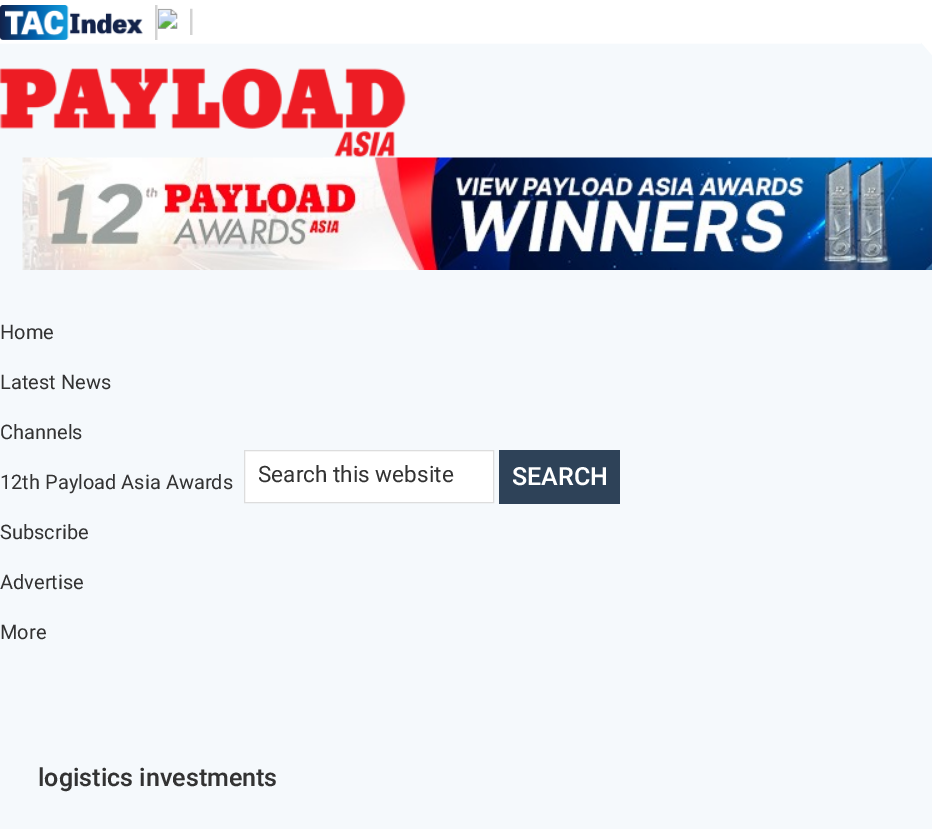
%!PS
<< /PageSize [932 829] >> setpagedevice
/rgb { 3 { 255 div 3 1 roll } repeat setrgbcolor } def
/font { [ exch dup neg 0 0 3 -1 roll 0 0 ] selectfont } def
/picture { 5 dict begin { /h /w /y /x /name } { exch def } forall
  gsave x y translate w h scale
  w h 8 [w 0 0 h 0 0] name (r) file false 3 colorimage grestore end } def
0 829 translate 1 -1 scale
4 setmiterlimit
255 255 255 rgb
0 0 932 829 rectfill
245 249 252 rgb
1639 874 moveto -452 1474 lineto 198 -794 lineto closepath fill
(img/1.rgb) 0 0 921 44 picture
(img/3.rgb) 22 157 910 113 picture
(img/2.rgb) 0 68 406 90 picture
255 255 255 rgb
244.5 450.5 moveto 493.5 450.5 lineto 493.5 502.5 lineto 244.5 502.5 lineto closepath gsave fill grestore
221 221 221 rgb
stroke
46 66 88 rgb
499 450 121 54 rectfill
/Heebo-Regular 20 font
51 51 51 rgb
[
  [(Home) 0 339]
  [(Latest News) 0 389]
  [(Channels) 0 439]
  [(12th Payload Asia Awards) 0 489]
  [(Subscribe) 0 539]
  [(Advertise) 0 589]
  [(More) 0 639]
] { aload pop moveto show } forall
/Heebo-Regular 22.5 font
258 482 moveto (Search this website) show
/Heebo-SemiBold 25 font
255 255 255 rgb
512 485 moveto (SEARCH) show
51 51 51 rgb
38 786 moveto (logistics investments) show
showpage
